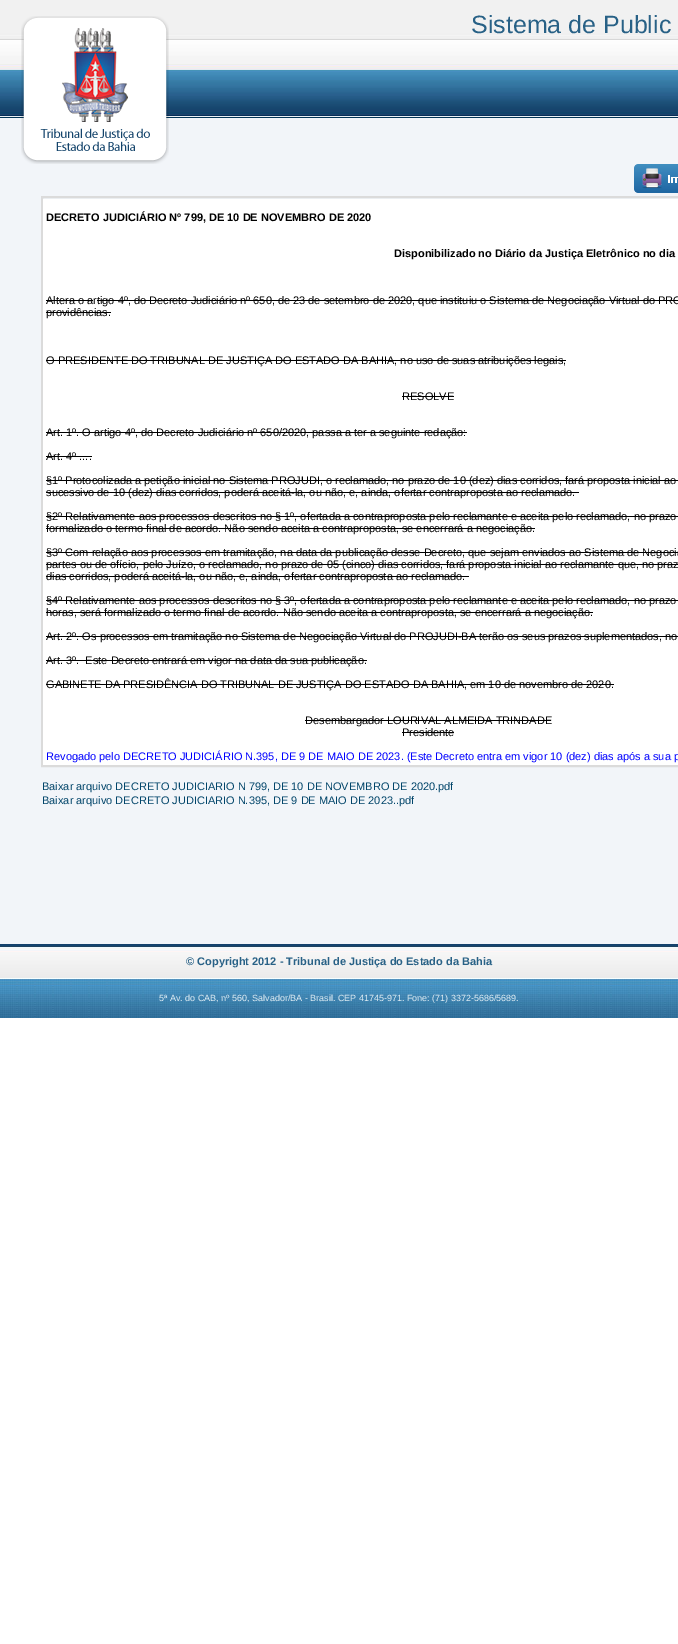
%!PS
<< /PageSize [678 1644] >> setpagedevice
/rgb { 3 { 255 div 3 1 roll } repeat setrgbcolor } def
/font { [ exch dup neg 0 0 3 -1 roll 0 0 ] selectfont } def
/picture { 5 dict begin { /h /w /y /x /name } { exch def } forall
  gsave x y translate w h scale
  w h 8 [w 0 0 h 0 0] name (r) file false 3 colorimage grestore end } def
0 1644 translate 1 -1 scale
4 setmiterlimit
255 255 255 rgb
0 0 678 1644 rectfill
242 245 249 rgb
0 118 678 826 rectfill
(img/1.rgb) 0 40 678 78 picture
(img/3.rgb) 0 0 678 40 picture
(img/2.rgb) 21 16 148 148 picture
(img/4.rgb) 634 164 44 29 picture
219 219 219 rgb
2 setlinewidth
42 197 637 569 rectstroke
[
  [43 199 635 566 255 255 255]
  [46 300 47 1 0 0 0]
  [97 300 581 1 0 0 0]
  [46 312 65 1 0 0 0]
  [46 360 520 1 0 0 0]
  [402 396 52 1 0 0 0]
  [46 432 421 1 0 0 0]
  [46 456 46 1 0 0 0]
  [46 480 632 1 0 0 0]
  [46 492 533 1 0 0 0]
  [46 516 632 1 0 0 0]
  [46 528 489 1 0 0 0]
  [46 552 632 1 0 0 0]
  [46 564 632 1 0 0 0]
  [46 576 423 1 0 0 0]
  [46 600 632 1 0 0 0]
  [46 612 547 1 0 0 0]
  [46 636 632 1 0 0 0]
  [46 660 321 1 0 0 0]
  [46 684 568 1 0 0 0]
  [305 720 246 1 0 0 0]
  [402 732 52 1 0 0 0]
] { aload pop rgb rectfill } forall
(img/5.rgb) 0 944 678 34 picture
(img/6.rgb) 0 978 678 40 picture
/LiberationSans-Regular 25 font
40 97 134 rgb
471 33 moveto (Sistema de Public) show
/LiberationSans-Bold 11 font
0 0 0 rgb
46 221 moveto (DECRETO JUDICIÁRIO Nº 799, DE 10 DE NOVEMBRO DE 2020) show
394 257 moveto (Disponibilizado no Diário da Justiça Eletrônico no dia) show
/LiberationSans-Regular 11 font
[
  [(Altera o artigo 4º, do Decreto Judiciário nº 650, de 23 de setembro de 2020, que instituiu o Sistema de Negociação Virtual do PRO) 46 304]
  [(providências.) 46 316]
  [(O PRESIDENTE DO TRIBUNAL DE JUSTIÇA DO ESTADO DA BAHIA, no uso de suas atribuições legais,) 46 364]
  [(RESOLVE) 402 400]
  [(Art. 1º. O artigo 4º, do Decreto Judiciário nº 650/2020, passa a ter a seguinte redação:) 46 436]
  [(Art. 4º ....) 46 460]
  [(§1º Protocolizada a petição inicial no Sistema PROJUDI, o reclamado, no prazo de 10 \(dez\) dias corridos, fará proposta inicial ao) 46 484]
  [(sucessivo de 10 \(dez\) dias corridos, poderá aceitá-la, ou não, e, ainda, ofertar contraproposta ao reclamado.) 46 496]
  [(§2º Relativamente aos processos descritos no § 1º, ofertada a contraproposta pelo reclamante e aceita pelo reclamado, no prazo) 46 520]
  [(formalizado o termo final de acordo. Não sendo aceita a contraproposta, se encerrará a negociação.) 46 532]
  [(§3º Com relação aos processos em tramitação, na data da publicação desse Decreto, que sejam enviados ao Sistema de Negocia) 46 556]
  [(partes ou de ofício, pelo Juízo, o reclamado, no prazo de 05 \(cinco\) dias corridos, fará proposta inicial ao reclamante que, no praz) 46 568]
  [(dias corridos, poderá aceitá-la, ou não, e, ainda, ofertar contraproposta ao reclamado.) 46 580]
  [(§4º Relativamente aos processos descritos no § 3º, ofertada a contraproposta pelo reclamante e aceita pelo reclamado, no prazo) 46 604]
  [(horas, será formalizado o termo final de acordo. Não sendo aceita a contraproposta, se encerrará a negociação.) 46 616]
  [(Art. 2º. Os processos em tramitação no Sistema de Negociação Virtual do PROJUDI-BA terão os seus prazos suplementados, no) 46 640]
  [(Art. 3º.  Este Decreto entrará em vigor na data da sua publicação.) 46 664]
  [(GABINETE DA PRESIDÊNCIA DO TRIBUNAL DE JUSTIÇA DO ESTADO DA BAHIA, em 10 de novembro de 2020.) 46 688]
  [(Desembargador LOURIVAL ALMEIDA TRINDADE) 305 724]
  [(Presidente) 402 736]
] { aload pop moveto show } forall
0 0 255 rgb
46 760 moveto (Revogado pelo DECRETO JUDICIÁRIO N.395, DE 9 DE MAIO DE 2023. \(Este Decreto entra em vigor 10 \(dez\) dias após a sua p) show
1 69 106 rgb
42 790 moveto (Baixar arquivo DECRETO JUDICIARIO N 799, DE 10 DE NOVEMBRO DE 2020.pdf) show
42 804 moveto (Baixar arquivo DECRETO JUDICIARIO N.395, DE 9 DE MAIO DE 2023..pdf) show
/LiberationSans-Bold 11 font
40 97 134 rgb
186 965 moveto (© Copyright 2012 - Tribunal de Justiça do Estado da Bahia) show
/LiberationSans-Regular 9 font
223 237 244 rgb
159 1001 moveto (5ª Av. do CAB, nº 560, Salvador/BA - Brasil. CEP 41745-971. Fone: \(71\) 3372-5686/5689.) show
showpage
